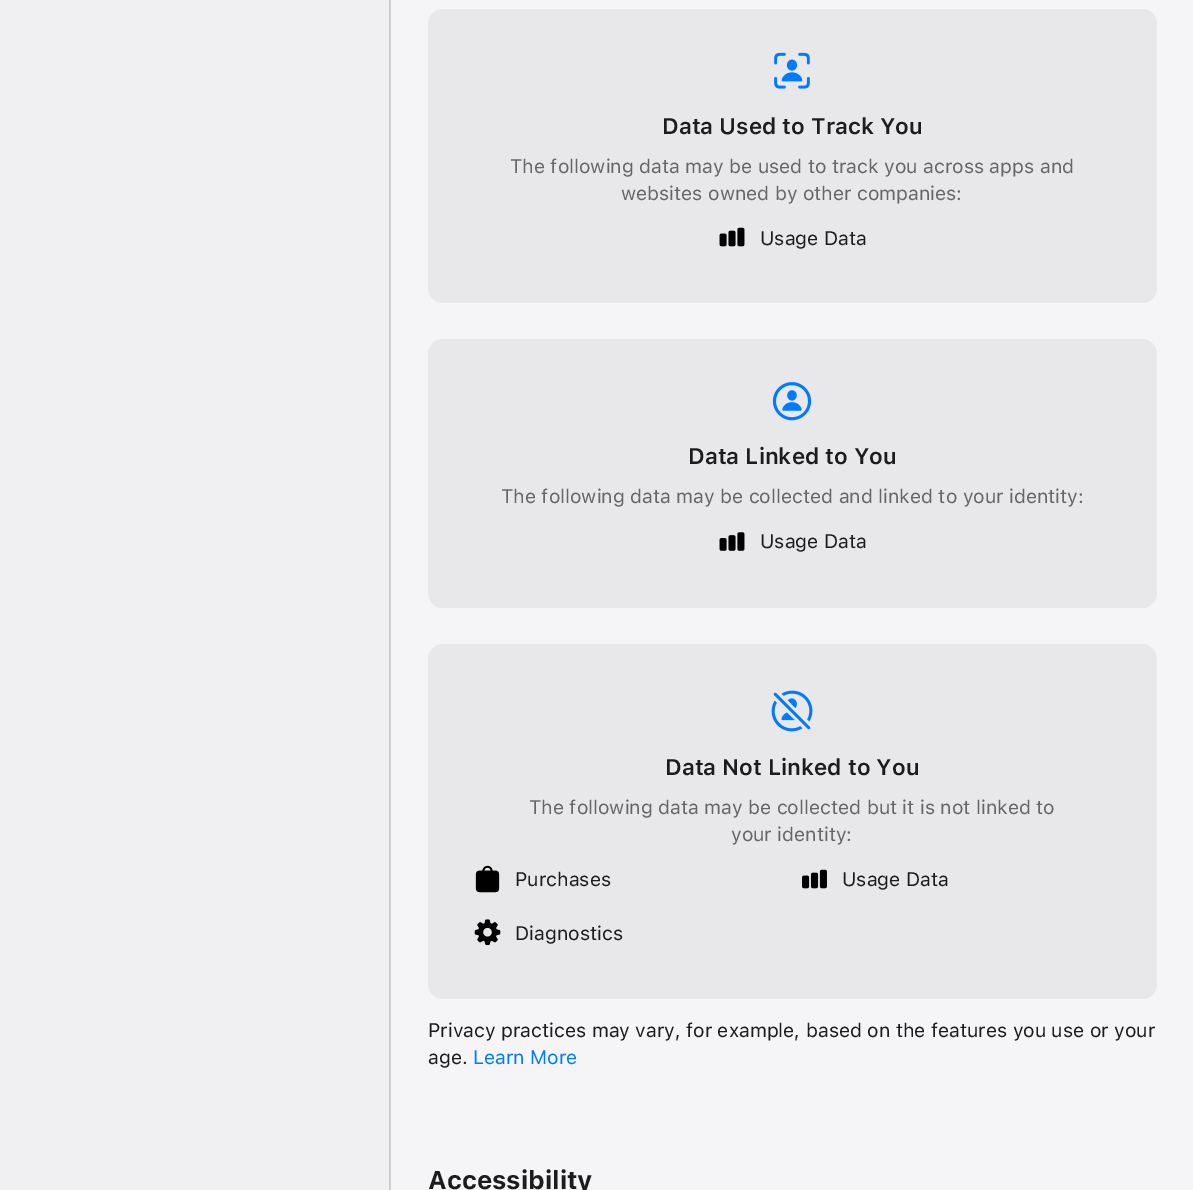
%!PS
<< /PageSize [1193 1190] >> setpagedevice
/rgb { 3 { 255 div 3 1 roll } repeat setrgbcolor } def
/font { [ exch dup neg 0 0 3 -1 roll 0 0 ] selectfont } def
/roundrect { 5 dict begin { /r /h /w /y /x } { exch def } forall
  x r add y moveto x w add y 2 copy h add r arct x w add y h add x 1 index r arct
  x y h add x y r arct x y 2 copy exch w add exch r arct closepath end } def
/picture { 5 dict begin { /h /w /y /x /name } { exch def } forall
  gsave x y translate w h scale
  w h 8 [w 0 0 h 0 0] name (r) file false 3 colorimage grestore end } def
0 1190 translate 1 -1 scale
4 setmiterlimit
245 245 247 rgb
0 0 1193 1190 rectfill
[
  [390 0 1 1190 208 208 210]
  [0 0 389 1190 240 240 242]
  [389 0 1 1190 204 204 206]
] { aload pop rgb rectfill } forall
232 232 235 rgb
428 9 729 294 15 roundrect fill
(img/1.rgb) 774 52 36 37 picture
(img/2.rgb) 719 227 26 20 picture
428 339 729 269 15 roundrect fill
(img/3.rgb) 772 382 40 39 picture
(img/4.rgb) 719 532 26 19 picture
428 644 729 355 15 roundrect fill
(img/5.rgb) 771 690 42 42 picture
(img/6.rgb) 475 865 25 28 picture
(img/7.rgb) 802 869 25 20 picture
(img/8.rgb) 474 919 27 27 picture
/SF-SemiBold 22.5 font
28 28 28 rgb
662 134 moveto (Data Used to Track You) show
/SF-Regular 19.5 font
102 102 103 rgb
510 173 moveto (The following data may be used to track you across apps and) show
621 200 moveto (websites owned by other companies:) show
28 28 28 rgb
760 245 moveto (Usage Data) show
/SF-SemiBold 22.5 font
688 464 moveto (Data Linked to You) show
/SF-Regular 19.5 font
102 102 103 rgb
501 503 moveto (The following data may be collected and linked to your identity:) show
28 28 28 rgb
760 548 moveto (Usage Data) show
/SF-SemiBold 22.5 font
665 775 moveto (Data Not Linked to You) show
/SF-Regular 19.5 font
102 102 103 rgb
529 814 moveto (The following data may be collected but it is not linked to) show
731 841 moveto (your identity:) show
28 28 28 rgb
[
  [(Purchases) 515 886]
  [(Usage Data) 842 886]
  [(Diagnostics) 515 940]
  [(Privacy practices may vary, for example, based on the features you use or your) 428 1037]
  [(age.) 428 1064]
] { aload pop moveto show } forall
0 122 255 rgb
473 1064 moveto (Learn More) show
/SF-Bold 25.5 font
28 28 28 rgb
428 1189 moveto (Accessibility) show
showpage
